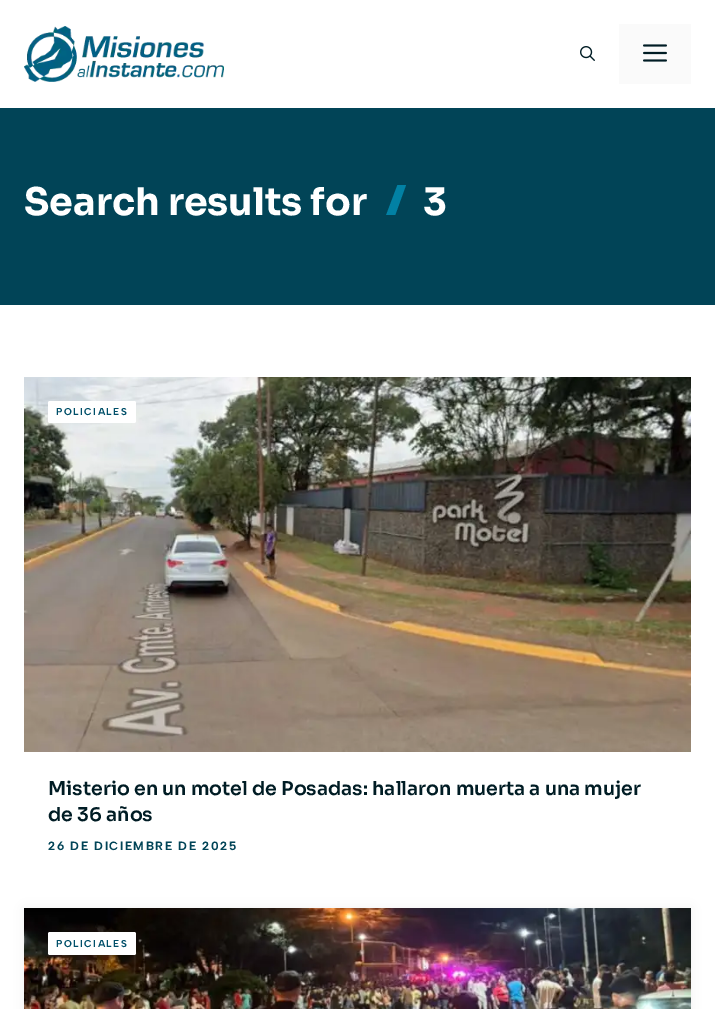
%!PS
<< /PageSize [715 1009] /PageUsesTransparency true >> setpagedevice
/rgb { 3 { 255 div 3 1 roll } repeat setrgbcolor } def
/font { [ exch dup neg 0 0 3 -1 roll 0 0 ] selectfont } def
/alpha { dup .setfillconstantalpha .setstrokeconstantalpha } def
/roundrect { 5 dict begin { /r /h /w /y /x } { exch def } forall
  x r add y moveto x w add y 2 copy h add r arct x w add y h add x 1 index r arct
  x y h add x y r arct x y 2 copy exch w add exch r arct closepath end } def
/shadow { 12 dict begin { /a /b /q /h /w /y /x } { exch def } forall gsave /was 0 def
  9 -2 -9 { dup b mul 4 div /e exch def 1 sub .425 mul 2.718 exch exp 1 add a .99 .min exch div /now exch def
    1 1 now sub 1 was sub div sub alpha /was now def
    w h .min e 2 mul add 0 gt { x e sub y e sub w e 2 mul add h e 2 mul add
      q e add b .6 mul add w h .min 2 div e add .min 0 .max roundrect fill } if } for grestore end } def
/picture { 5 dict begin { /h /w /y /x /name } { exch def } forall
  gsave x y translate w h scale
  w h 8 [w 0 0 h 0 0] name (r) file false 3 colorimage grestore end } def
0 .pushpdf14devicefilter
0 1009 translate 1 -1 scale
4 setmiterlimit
255 255 255 rgb
0 0 715 1009 rectfill
(img/1.rgb) 24 26 200 56 picture
(img/2.rgb) 580 46 15 15 picture
250 250 250 rgb
619 24 72 60 rectfill
(img/3.rgb) 643 44 24 18 picture
1 68 87 rgb
0 108 715 197 rectfill
gsave
381 185 30 30 rectclip
2 129 164 rgb
386 215.5 moveto 397.5 185 lineto 406 185 lineto 395 215.5 lineto closepath fill
grestore
(img/4.rgb) 24 377 667 375 picture
255 255 255 rgb
48 401 88 22 2 roundrect fill
0 0 0 rgb
24 908 667 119 0 6 0.06 shadow
(img/5.rgb) 24 908 667 101 picture
255 255 255 rgb
48 932 88 23 2 roundrect fill
/Sora-Bold 38 font
24 215 moveto (Search results for) show
423 215 moveto (3) show
/AlbertSans-Bold 10 font
0 79 105 rgb
56 415 moveto 1.5 0 (POLICIALES) ashow
/Sora-SemiBold 19 font
0 28 36 rgb
48 795 moveto (Misterio en un motel de Posadas: hallaron muerta a una mujer) show
48 821 moveto (de 36 años) show
/AlbertSans-Bold 12 font
1 68 87 rgb
48 850 moveto 1.5 0 (26 DE DICIEMBRE DE 2025) ashow
/AlbertSans-Bold 10 font
0 79 105 rgb
56 947 moveto 1.5 0 (POLICIALES) ashow
.poppdf14devicefilter showpage
